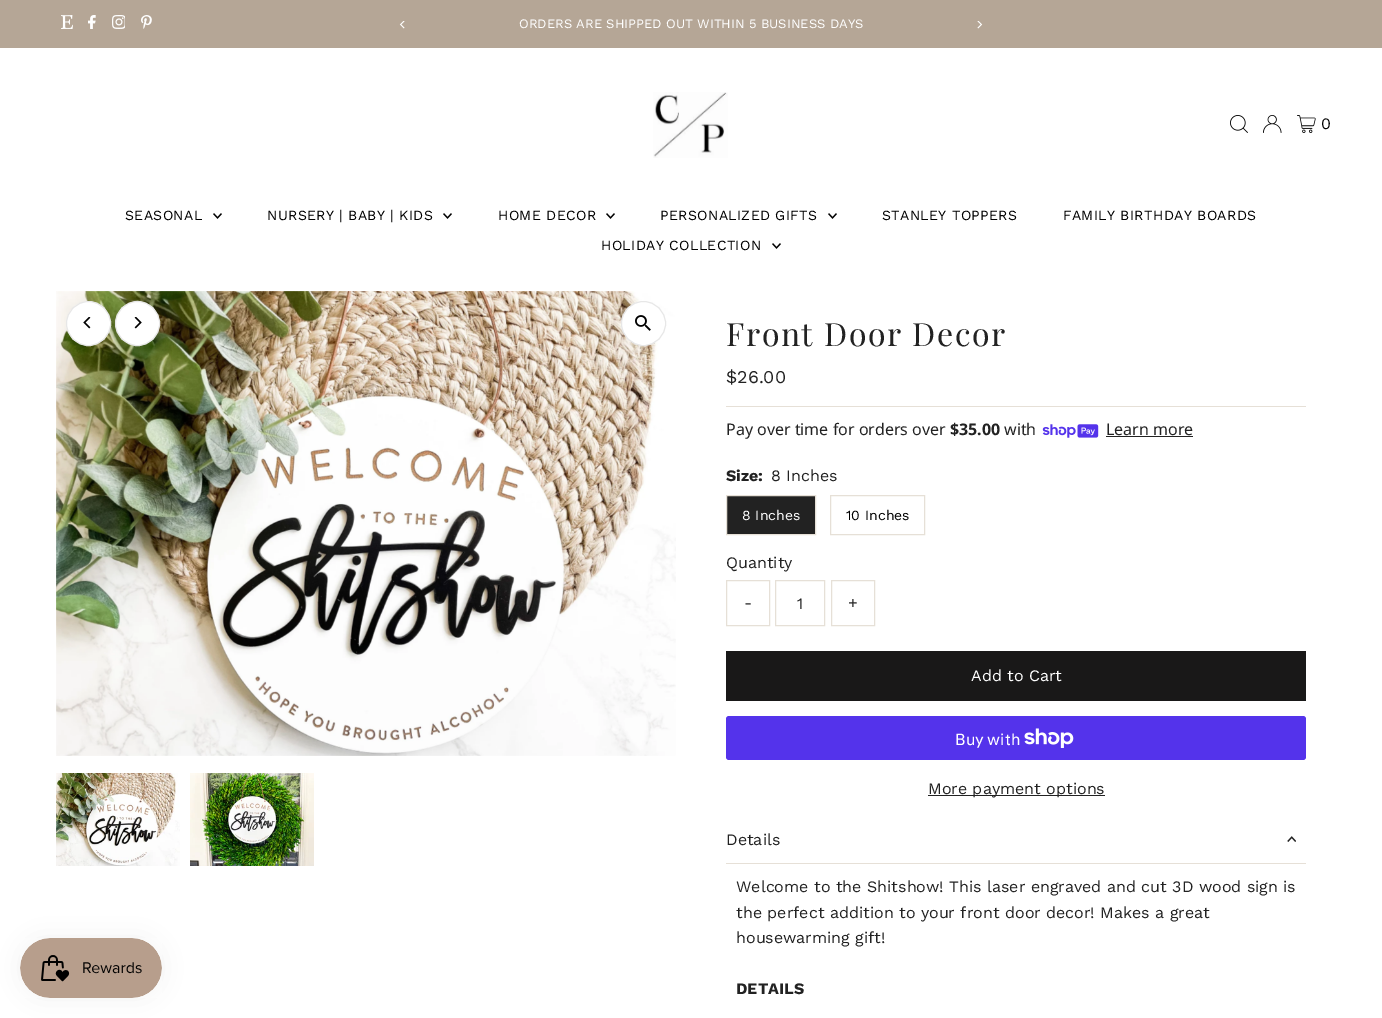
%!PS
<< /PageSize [1382 1018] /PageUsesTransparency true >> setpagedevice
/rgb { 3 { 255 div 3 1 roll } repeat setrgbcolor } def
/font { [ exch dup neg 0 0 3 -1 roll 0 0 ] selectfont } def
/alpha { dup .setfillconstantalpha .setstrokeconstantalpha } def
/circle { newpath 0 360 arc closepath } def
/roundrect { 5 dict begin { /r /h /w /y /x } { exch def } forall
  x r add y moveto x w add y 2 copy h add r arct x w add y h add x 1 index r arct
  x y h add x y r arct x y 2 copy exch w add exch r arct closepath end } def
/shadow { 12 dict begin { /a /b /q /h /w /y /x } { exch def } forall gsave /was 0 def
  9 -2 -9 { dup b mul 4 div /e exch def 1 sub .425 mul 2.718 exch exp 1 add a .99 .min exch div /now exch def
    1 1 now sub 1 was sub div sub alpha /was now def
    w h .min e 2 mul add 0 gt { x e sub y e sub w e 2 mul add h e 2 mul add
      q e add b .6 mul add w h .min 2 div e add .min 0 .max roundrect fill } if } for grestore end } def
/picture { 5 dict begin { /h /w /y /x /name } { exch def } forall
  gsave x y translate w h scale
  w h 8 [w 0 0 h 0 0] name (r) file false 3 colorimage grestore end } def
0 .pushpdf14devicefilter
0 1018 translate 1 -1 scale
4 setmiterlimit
255 255 255 rgb
0 0 1382 1018 rectfill
0 0 0 rgb
20 938 142 60 30 12.5 0.05 shadow
(img/1.rgb) 20 938 142 60 picture
181 166 150 rgb
0 0 1382 48 rectfill
(img/2.rgb) 61 15 12 14 picture
(img/3.rgb) 88 15 8 14 picture
(img/4.rgb) 112 15 13 14 picture
(img/5.rgb) 141 15 11 14 picture
(img/6.rgb) 399 21 6 8 picture
(img/7.rgb) 977 21 6 8 picture
(img/8.rgb) 653 92 75 66 picture
(img/9.rgb) 1230 115 18 18 picture
(img/10.rgb) 1263 115 19 18 picture
(img/11.rgb) 1297 115 19 18 picture
(img/12.rgb) 213 213 9 6 picture
(img/12.rgb) 443 213 9 6 picture
(img/12.rgb) 606 213 9 6 picture
(img/12.rgb) 828 213 9 6 picture
(img/12.rgb) 772 243 9 6 picture
(img/13.rgb) 56 291 620 465 picture
255 255 255 rgb
643.5 323.5 22 circle gsave fill grestore
231 231 231 rgb
stroke
(img/14.rgb) 635 315 16 16 picture
255 255 255 rgb
88.5 323.5 22 circle gsave fill grestore
231 231 231 rgb
stroke
(img/15.rgb) 83 317 8 12 picture
255 255 255 rgb
137.5 323.5 22 circle gsave fill grestore
231 231 231 rgb
stroke
(img/16.rgb) 134 317 8 12 picture
(img/17.rgb) 56 773 124 93 picture
(img/18.rgb) 190 773 124 93 picture
230 224 215 rgb
726 406 580 1 rectfill
(img/19.rgb) 1042 424 57 14 picture
34 34 34 rgb
1106 436 87 1 rectfill
726.5 495.5 moveto 815.5 495.5 lineto 815.5 534.5 lineto 726.5 534.5 lineto closepath gsave fill grestore
230 224 215 rgb
stroke
830.5 495.5 94 39 rectstroke
726.5 580.5 43 45 rectstroke
775.5 580.5 49 45 rectstroke
831.5 580.5 43 45 rectstroke
25 24 24 rgb
726 651 580 50 rectfill
84 51 235 rgb
726 716 580 44 3 roundrect fill
(img/20.rgb) 1024 728 50 20 picture
34 34 34 rgb
928 795 177 1 rectfill
230 224 215 rgb
726 863 580 1 rectfill
(img/21.rgb) 1287 836 9 6 picture
/WorkSans-Regular 13 font
255 255 255 rgb
519 28 moveto (ORDERS ARE SHIPPED OUT WITHIN 5 BUSINESS DAYS) show
/WorkSans-Regular 16 font
0 0 0 rgb
1321 129 moveto (0) show
/WorkSans-Regular 14 font
125 220 moveto 0.35 0 (SEASONAL) ashow
267 220 moveto 0.35 0 (NURSERY | BABY | KIDS) ashow
498 220 moveto 0.35 0 (HOME DECOR) ashow
660 220 moveto 0.35 0 (PERSONALIZED GIFTS) ashow
882 220 moveto 0.35 0 (STANLEY TOPPERS) ashow
1063 220 moveto 0.35 0 (FAMILY BIRTHDAY BOARDS) ashow
601 250 moveto 0.35 0 (HOLIDAY COLLECTION) ashow
/PlayfairDisplay-Regular 32 font
34 34 34 rgb
726 346 moveto 1.6 0 (Front Door Decor) ashow
/WorkSans-Regular 18 font
726 383 moveto ($26.00) show
/NotoSans-Regular 16 font
726 435 moveto (Pay over time for orders over) show
/NotoSans-Bold 16 font
950 435 moveto ($35.00) show
/NotoSans-Regular 16 font
1004 435 moveto (with) show
1106 435 moveto (Learn more) show
/WorkSans-Bold 16 font
726 481 moveto (Size:) show
/WorkSans-Regular 16 font
771 481 moveto (8 Inches) show
/WorkSans-Regular 14 font
255 255 255 rgb
742 520 moveto (8 Inches) show
0 0 0 rgb
846 520 moveto (10 Inches) show
/WorkSans-Regular 16 font
34 34 34 rgb
[
  [(Quantity) 726 568]
  [(-) 744 608]
  [(1) 797 609]
  [(+) 848 608]
] { aload pop moveto show } forall
255 255 255 rgb
971 681 moveto (Add to Cart) show
/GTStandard-Regular 16 font
955 745 moveto (Buy with) show
/WorkSans-Regular 16 font
34 34 34 rgb
[
  [(More payment options) 928 794]
  [(Details) 726 845]
  [(Welcome to the Shitshow! This laser engraved and cut 3D wood sign is) 736 892]
  [(the perfect addition to your front door decor! Makes a great) 736 918]
  [(housewarming gift!) 736 943]
] { aload pop moveto show } forall
/WorkSans-Bold 16 font
736 994 moveto (DETAILS) show
.poppdf14devicefilter showpage
